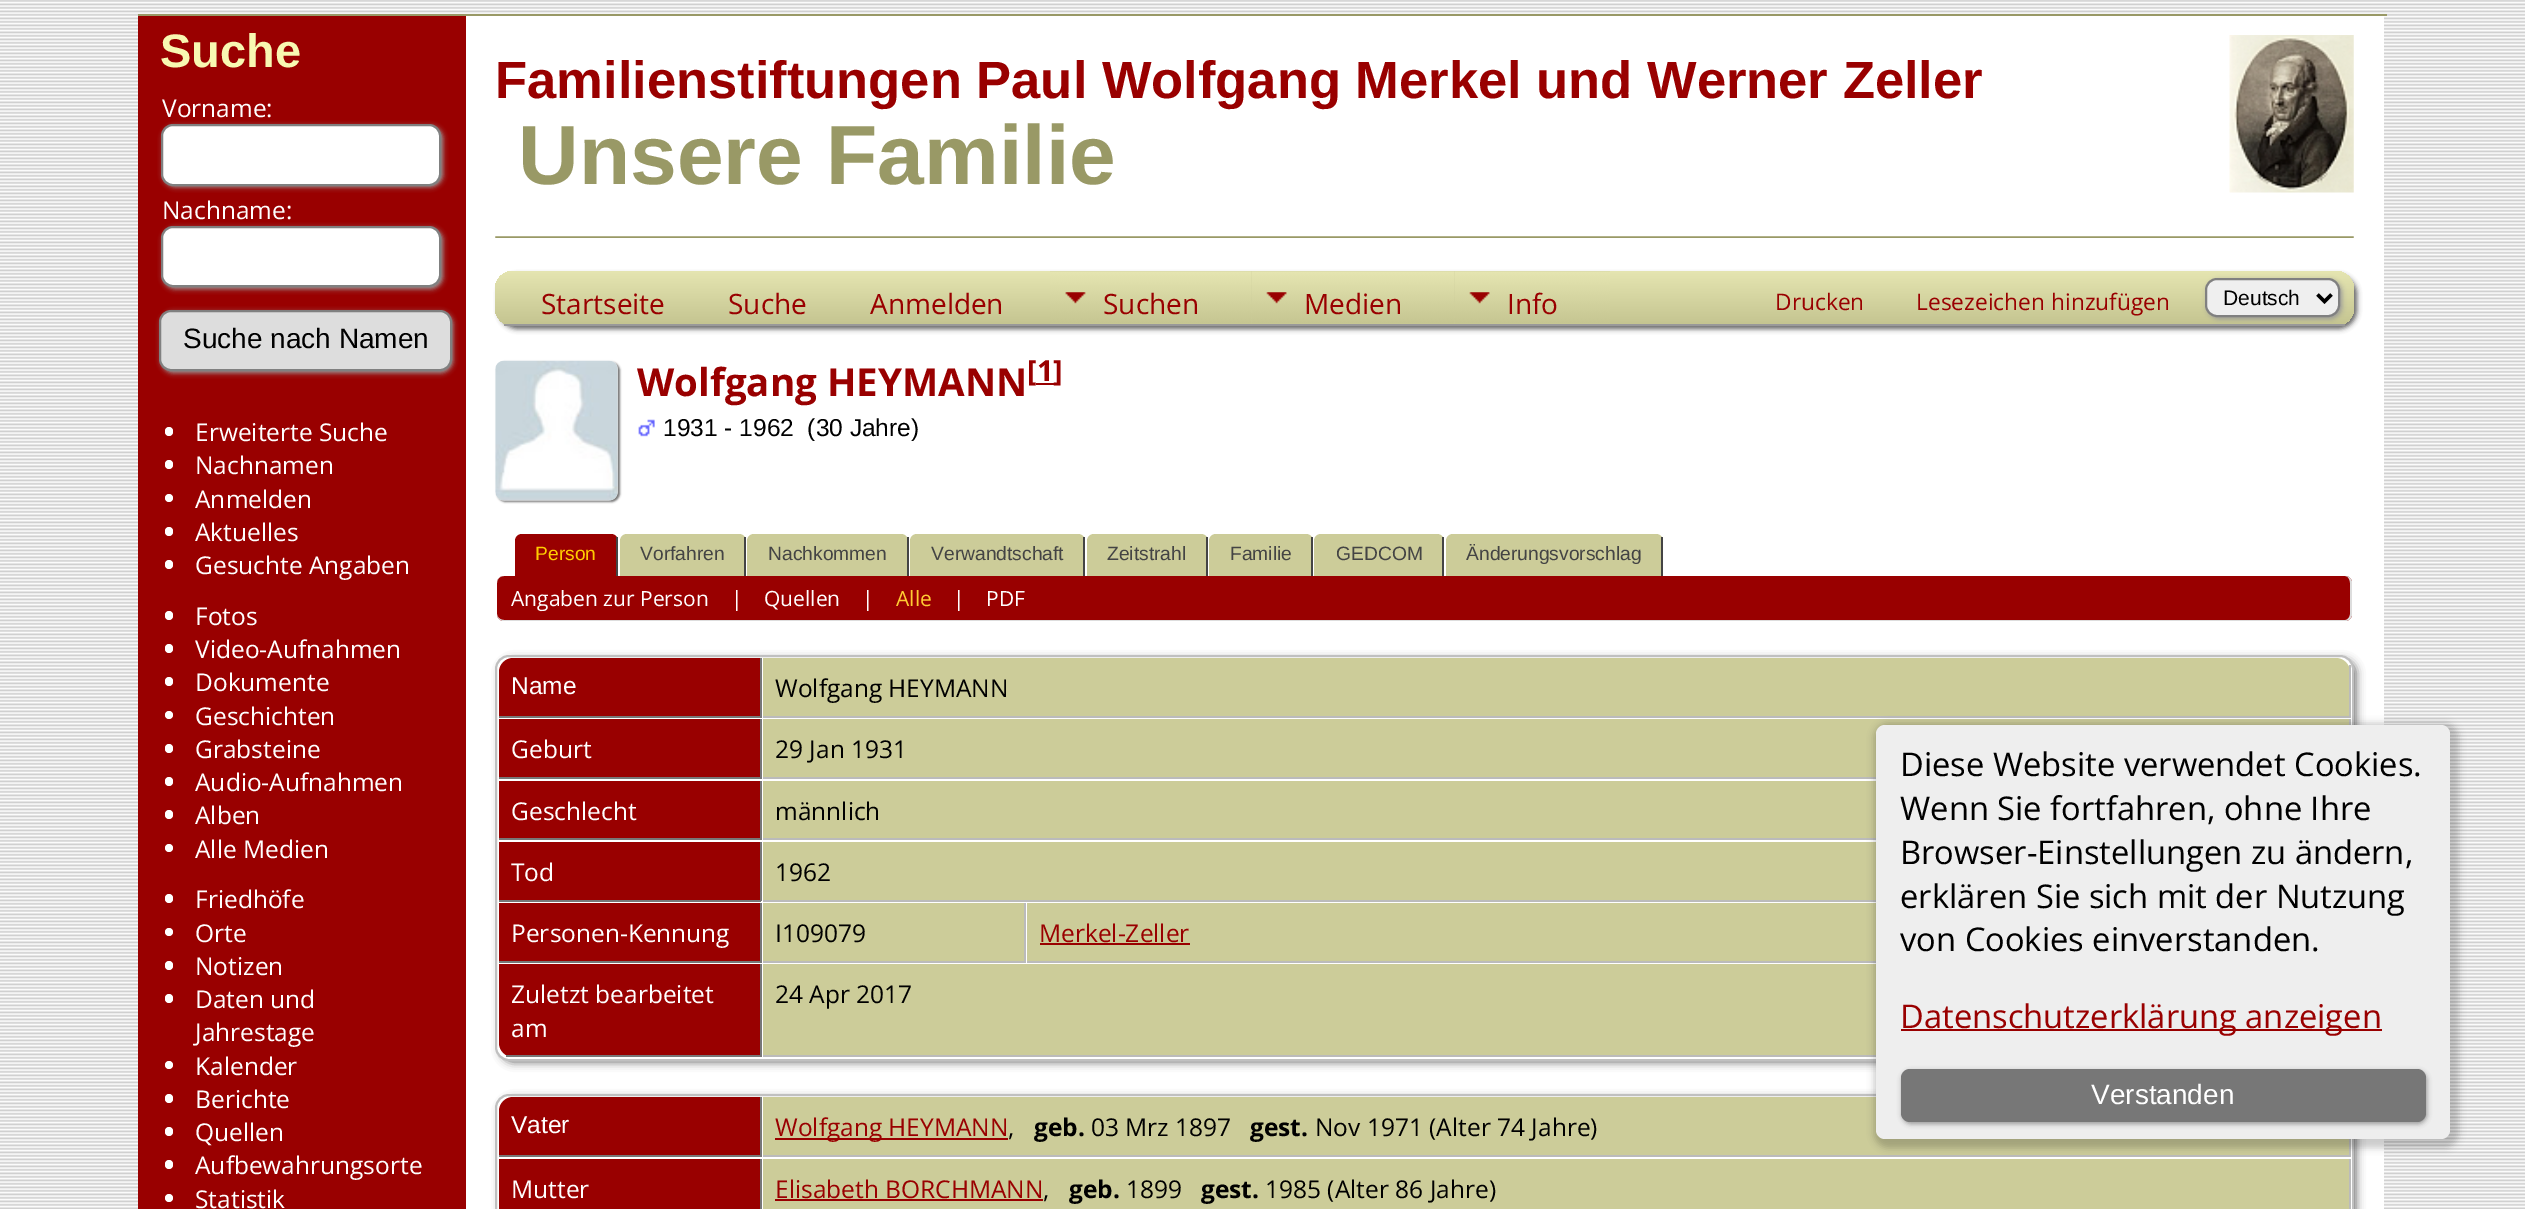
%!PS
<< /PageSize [2525 1209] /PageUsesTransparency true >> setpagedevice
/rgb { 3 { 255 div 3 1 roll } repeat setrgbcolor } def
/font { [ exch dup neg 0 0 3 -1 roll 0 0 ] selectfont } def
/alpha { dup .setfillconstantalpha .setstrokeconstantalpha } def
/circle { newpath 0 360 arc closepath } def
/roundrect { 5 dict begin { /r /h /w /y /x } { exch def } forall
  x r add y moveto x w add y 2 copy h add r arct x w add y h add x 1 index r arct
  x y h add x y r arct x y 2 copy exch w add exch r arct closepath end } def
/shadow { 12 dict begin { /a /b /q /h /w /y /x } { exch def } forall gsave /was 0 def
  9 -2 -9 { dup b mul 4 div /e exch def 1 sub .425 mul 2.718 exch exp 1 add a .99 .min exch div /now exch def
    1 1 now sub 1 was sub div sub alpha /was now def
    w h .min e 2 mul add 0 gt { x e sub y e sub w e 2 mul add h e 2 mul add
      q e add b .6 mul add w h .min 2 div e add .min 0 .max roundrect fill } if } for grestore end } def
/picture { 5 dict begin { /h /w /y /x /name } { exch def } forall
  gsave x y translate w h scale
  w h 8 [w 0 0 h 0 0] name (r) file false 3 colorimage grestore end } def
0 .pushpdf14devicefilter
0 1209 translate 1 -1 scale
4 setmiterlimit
255 255 255 rgb
0 0 2525 1209 rectfill
(img/1.rgb) 0 0 2525 1209 picture
153 153 102 rgb
138 14 2249 2 rectfill
153 0 0 rgb
138 16 328 1193 rectfill
153 153 153 rgb
163 126 280 61 12 2.5 1 shadow
255 255 255 rgb
162 125 278 60 11 roundrect gsave fill grestore
128 128 128 rgb
2 setlinewidth
stroke
153 153 153 rgb
163 228 280 61 12 2.5 1 shadow
255 255 255 rgb
162 227 278 59 11 roundrect gsave fill grestore
128 128 128 rgb
stroke
153 153 153 rgb
161 312 292 61 12 2.5 1 shadow
221 221 221 rgb
160 311 291 59 11 roundrect gsave fill grestore
128 128 128 rgb
stroke
255 255 255 rgb
165 427 8 9 4 roundrect fill
165 460 8 9 4 roundrect fill
169 498 4 circle fill
165 527 8 9 4 roundrect fill
165 560 8 9 4 roundrect fill
165 611 8 9 4 roundrect fill
165 644 8 9 4 roundrect fill
165 677 8 9 4 roundrect fill
169 715 4 circle fill
165 744 8 9 4 roundrect fill
165 777 8 9 4 roundrect fill
165 810 8 9 4 roundrect fill
169 848 4 circle fill
165 894 8 9 4 roundrect fill
169 932 4 circle fill
165 961 8 9 4 roundrect fill
165 994 8 9 4 roundrect fill
169 1065 4 circle fill
165 1094 8 9 4 roundrect fill
165 1127 8 9 4 roundrect fill
165 1160 8 9 4 roundrect fill
169 1198 4 circle fill
466 16 1918 1193 rectfill
(img/2.rgb) 2229 35 125 158 picture
(img/3.rgb) 495 236 1859 2 picture
102 102 102 rgb
499 275 1858 54 18 2.5 1 shadow
204 204 153 rgb
495 271 1859 55 18 roundrect fill
gsave
495 271 1859 55 18 roundrect clip newpath
gsave 513 271 moveto 2336 271 lineto 2346 271 2354 279 2354 289 curveto 2354 324 lineto 495 324 lineto 495 289 lineto 495 279 503 271 513 271 curveto closepath clip newpath
<< /ShadingType 2 /ColorSpace /DeviceRGB /Coords [1425 271 1425 324] /Extend [true true] /Function << /FunctionType 2 /Domain [0 1] /C0 [0.898 0.898 0.694] /C1 [0.773 0.773 0.569] /N 1 >> >> shfill grestore
grestore
153 153 153 rgb
504 324 1841 2 rectfill
(img/4.rgb) 1050 271 201 53 picture
204 204 153 rgb
1251 271 359 53 rectfill
(img/5.rgb) 1251 271 203 53 picture
(img/6.rgb) 1454 271 156 53 picture
153 153 153 rgb
2207 280 135 39 12 2.5 1 shadow
239 239 239 rgb
2206 279 133 37 11 roundrect gsave fill grestore
128 128 128 rgb
stroke
0 0 0 rgb
3.5 setlinewidth
2317.5 294.5 moveto 2324.5 301.5 lineto 2331.5 294.5 lineto stroke
119 119 119 rgb
497 362 123 140 9 1 1 shadow
(img/7.rgb) 495 360 123 141 picture
153 0 0 rgb
1036 383 18 2 rectfill
(img/8.rgb) 638 419 17 18 picture
522 534 moveto 611 534 lineto 615 534 618 537 618 541 curveto 618 576 lineto 515 576 lineto 515 541 lineto 515 537 518 534 522 534 curveto closepath fill
68 68 68 rgb
616 537 2 39 rectfill
204 204 153 rgb
627 534 moveto 739 534 lineto 743 534 746 537 746 541 curveto 746 576 lineto 620 576 lineto 620 541 lineto 620 537 623 534 627 534 curveto closepath fill
68 68 68 rgb
744 537 2 39 rectfill
204 204 153 rgb
754 534 moveto 901 534 lineto 905 534 908 537 908 541 curveto 908 576 lineto 747 576 lineto 747 541 lineto 747 537 750 534 754 534 curveto closepath fill
68 68 68 rgb
907 537 2 39 rectfill
204 204 153 rgb
917 534 moveto 1078 534 lineto 1082 534 1085 537 1085 541 curveto 1085 576 lineto 910 576 lineto 910 541 lineto 910 537 913 534 917 534 curveto closepath fill
68 68 68 rgb
1083 537 2 39 rectfill
204 204 153 rgb
1094 534 moveto 1201 534 lineto 1205 534 1208 537 1208 541 curveto 1208 576 lineto 1087 576 lineto 1087 541 lineto 1087 537 1090 534 1094 534 curveto closepath fill
68 68 68 rgb
1206 537 2 39 rectfill
204 204 153 rgb
1216 534 moveto 1306 534 lineto 1310 534 1313 537 1313 541 curveto 1313 576 lineto 1209 576 lineto 1209 541 lineto 1209 537 1212 534 1216 534 curveto closepath fill
68 68 68 rgb
1311 537 2 39 rectfill
204 204 153 rgb
1321 534 moveto 1437 534 lineto 1441 534 1444 537 1444 541 curveto 1444 576 lineto 1314 576 lineto 1314 541 lineto 1314 537 1317 534 1321 534 curveto closepath fill
68 68 68 rgb
1442 537 2 39 rectfill
204 204 153 rgb
1453 534 moveto 1656 534 lineto 1660 534 1663 537 1663 541 curveto 1663 576 lineto 1446 576 lineto 1446 541 lineto 1446 537 1449 534 1453 534 curveto closepath fill
68 68 68 rgb
1661 537 2 39 rectfill
153 0 0 rgb
497 576 1855 45 7 roundrect fill
221 221 221 rgb
504 576 moveto 2345 576 lineto 2349 576 2352 579 2352 583 curveto 2352 614 lineto 2352 618 2349 621 2345 621 curveto 504 621 lineto 500 621 497 618 497 614 curveto 497 583 lineto 497 579 500 576 504 576 curveto closepath 504 576 moveto 2345 576 lineto 2348 576 2350 579 2350 583 curveto 2350 614 lineto 2350 617 2348 620 2345 620 curveto 504 620 lineto 500 620 497 617 497 614 curveto 497 583 lineto 497 579 500 576 504 576 curveto closepath eofill
102 102 102 rgb
501 660 1855 402 12 4.5 1 shadow
255 255 255 rgb
496 656 1857 404 13 roundrect gsave fill grestore
192 192 192 rgb
2 setlinewidth
stroke
153 0 0 rgb
513 658 moveto 761 658 lineto 761 718 lineto 499 718 lineto 499 672 lineto 499 664.5 505.5 658 513 658 curveto closepath fill
119 119 119 rgb
760 658 2 60 rectfill
499 716 262 2 rectfill
204 204 153 rgb
763 658 moveto 2336 658 lineto 2343.5 658 2350 664.5 2350 672 curveto 2350 718 lineto 763 718 lineto closepath fill
[
  [2349 665 2 53 187 187 187]
  [763 716 1587 2 187 187 187]
  [499 719 261 58 153 0 0]
  [760 719 2 60 119 119 119]
  [499 777 262 2 119 119 119]
  [763 719 1586 58 204 204 153]
  [2349 719 2 6 187 187 187]
  [763 777 1113 2 187 187 187]
  [499 781 261 57 153 0 0]
  [760 781 2 59 119 119 119]
  [499 838 262 2 119 119 119]
  [763 781 1113 57 204 204 153]
  [763 838 1113 2 187 187 187]
  [499 842 261 58 153 0 0]
  [760 842 2 59 119 119 119]
  [499 900 262 2 119 119 119]
  [763 842 1113 58 204 204 153]
  [763 900 1113 2 187 187 187]
  [499 903 261 58 153 0 0]
  [760 903 2 60 119 119 119]
  [499 961 262 2 119 119 119]
  [763 903 261 58 204 204 153]
  [1024 903 2 60 187 187 187]
  [763 961 263 2 187 187 187]
  [1027 903 849 58 204 204 153]
  [1027 961 849 2 187 187 187]
  [1040 943 150 2 153 0 0]
] { aload pop rgb rectfill } forall
499 964 moveto 761 964 lineto 761 1057 lineto 513 1057 lineto 505.5 1057 499 1050.5 499 1043 curveto closepath fill
[
  [760 964 2 93 119 119 119]
  [506 1055 255 2 119 119 119]
  [763 964 1113 91 204 204 153]
] { aload pop rgb rectfill } forall
187 187 187 rgb
763 964 moveto 2350 964 lineto 2350 1043 lineto 2350 1051 2344 1057 2336 1057 curveto 763 1057 lineto closepath 763 964 moveto 2348 964 lineto 2348 1043 lineto 2348 1050 2343 1055 2336 1055 curveto 763 1055 lineto closepath eofill
102 102 102 rgb
501 1099 1855 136 12 4.5 1 shadow
255 255 255 rgb
496 1095 1857 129 13 roundrect gsave fill grestore
192 192 192 rgb
stroke
153 0 0 rgb
513 1097 moveto 761 1097 lineto 761 1157 lineto 499 1157 lineto 499 1111 lineto 499 1103.5 505.5 1097 513 1097 curveto closepath fill
[
  [760 1097 2 60 119 119 119]
  [499 1155 262 2 119 119 119]
  [763 1097 1586 58 204 204 153]
  [2349 1139 2 18 187 187 187]
  [763 1155 1587 2 187 187 187]
  [775 1138 233 2 153 0 0]
  [499 1159 261 50 153 0 0]
  [760 1159 2 50 119 119 119]
  [763 1159 1586 50 204 204 153]
  [2349 1159 2 50 187 187 187]
  [775 1199 268 2 153 0 0]
] { aload pop rgb rectfill } forall
0 0 0 rgb
1874 723 585 425 14 3.5 0.2 shadow
238 238 238 rgb
1876 725 574 414 9 roundrect fill
153 0 0 rgb
1901 1029 481 2 rectfill
153 153 153 rgb
1902 1071 525 53 9 2.5 1 shadow
119 119 119 rgb
1901 1069 525 53 9 roundrect fill
/LiberationSans-Bold 47 font
248 248 178 rgb
160 67 moveto (Suche) show
/OpenSans-Regular 24.5 font
255 255 255 rgb
162 117 moveto (Vorname:) show
162 219 moveto (Nachname:) show
/LiberationSans-Regular 28 font
0 0 0 rgb
183 348 moveto (Suche nach Namen) show
/OpenSans-Regular 24.5 font
255 255 255 rgb
[
  [(Erweiterte Suche) 195 441]
  [(Nachnamen) 195 474]
  [(Anmelden) 195 508]
  [(Aktuelles) 195 541]
  [(Gesuchte Angaben) 195 574]
  [(Fotos) 195 625]
  [(Video-Aufnahmen) 195 658]
  [(Dokumente) 195 691]
  [(Geschichten) 195 725]
  [(Grabsteine) 195 758]
  [(Audio-Aufnahmen) 195 791]
  [(Alben) 195 824]
  [(Alle Medien) 195 858]
  [(Friedhöfe) 195 908]
  [(Orte) 195 942]
  [(Notizen) 195 975]
  [(Daten und) 195 1008]
  [(Jahrestage) 195 1041]
  [(Kalender) 195 1075]
  [(Berichte) 195 1108]
  [(Quellen) 195 1141]
  [(Aufbewahrungsorte) 195 1174]
  [(Statistik) 195 1208]
] { aload pop moveto show } forall
/LiberationSans-Bold 52.5 font
153 0 0 rgb
495 98 moveto (Familienstiftungen Paul Wolfgang Merkel und Werner Zeller) show
/LiberationSans-Bold 84 font
153 153 102 rgb
518 184 moveto (Unsere Familie) show
/OpenSans-Regular 28 font
153 0 0 rgb
[
  [(Startseite) 541 314]
  [(Suche) 728 314]
  [(Anmelden) 870 314]
  [(Suchen) 1103 314]
  [(Medien) 1304 314]
  [(Info) 1507 314]
] { aload pop moveto show } forall
/OpenSans-Regular 22.75 font
1775 310 moveto (Drucken) show
1916 310 moveto (Lesezeichen hinzufügen) show
/LiberationSans-Regular 21 font
0 0 0 rgb
2223 305 moveto (Deutsch) show
/OpenSans-Bold 38.5 font
153 0 0 rgb
637 396 moveto (Wolfgang HEYMANN) show
/OpenSans-Bold 29 font
1027 381 moveto ([1) show
1053 381 moveto (]) show
/LiberationSans-Regular 24.5 font
0 0 0 rgb
663 436 moveto (1931 - 1962  \(30 Jahre\)) show
/LiberationSans-Regular 19.25 font
255 204 0 rgb
535 560 moveto (Person) show
68 68 68 rgb
[
  [(Vorfahren) 640 560]
  [(Nachkommen) 768 560]
  [(Verwandtschaft) 931 560]
  [(Zeitstrahl) 1107 560]
  [(Familie) 1230 560]
  [(GEDCOM) 1336 560]
  [(Änderungsvorschlag) 1466 560]
] { aload pop moveto show } forall
/OpenSans-Regular 21 font
255 255 255 rgb
[
  [(Angaben zur Person) 511 606]
  [(|) 731 606]
  [(Quellen) 764 606]
  [(|) 862 606]
] { aload pop moveto show } forall
255 204 51 rgb
896 606 moveto (Alle) show
255 255 255 rgb
953 606 moveto (|) show
986 606 moveto (PDF) show
/LiberationSans-Regular 24.5 font
511 694 moveto (Name) show
/OpenSans-Regular 24.5 font
0 0 0 rgb
775 697 moveto (Wolfgang HEYMANN) show
255 255 255 rgb
511 758 moveto (Geburt) show
0 0 0 rgb
775 758 moveto (29 Jan 1931) show
255 255 255 rgb
511 820 moveto (Geschlecht) show
0 0 0 rgb
775 820 moveto (männlich) show
255 255 255 rgb
511 881 moveto (Tod) show
0 0 0 rgb
775 881 moveto (1962) show
255 255 255 rgb
511 942 moveto (Personen-Kennung) show
0 0 0 rgb
775 942 moveto (I109079) show
153 0 0 rgb
1039 942 moveto (Merkel-Zeller) show
255 255 255 rgb
511 1003 moveto (Zuletzt bearbeitet) show
511 1037 moveto (am) show
0 0 0 rgb
775 1003 moveto (24 Apr 2017) show
/LiberationSans-Regular 24.5 font
255 255 255 rgb
511 1133 moveto (Vater) show
/OpenSans-Regular 24.5 font
153 0 0 rgb
775 1136 moveto (Wolfgang HEYMANN) show
0 0 0 rgb
1008 1136 moveto (,) show
/OpenSans-Bold 24.5 font
1034 1136 moveto (geb.) show
/OpenSans-Regular 24.5 font
1091 1136 moveto (03 Mrz 1897) show
/OpenSans-Bold 24.5 font
1250 1136 moveto (gest.) show
/OpenSans-Regular 24.5 font
1315 1136 moveto (Nov 1971 \(Alter 74 Jahre\)) show
255 255 255 rgb
511 1198 moveto (Mutter) show
153 0 0 rgb
775 1198 moveto (Elisabeth BORCHMANN) show
0 0 0 rgb
1043 1198 moveto (,) show
/OpenSans-Bold 24.5 font
1069 1198 moveto (geb.) show
/OpenSans-Regular 24.5 font
1126 1198 moveto (1899) show
/OpenSans-Bold 24.5 font
1201 1198 moveto (gest.) show
/OpenSans-Regular 24.5 font
1265 1198 moveto (1985 \(Alter 86 Jahre\)) show
/OpenSans-Regular 32.7 font
[
  [(Diese Website verwendet Cookies.) 1900 776]
  [(Wenn Sie fortfahren, ohne Ihre) 1900 820]
  [(Browser-Einstellungen zu ändern,) 1900 864]
  [(erklären Sie sich mit der Nutzung) 1900 908]
  [(von Cookies einverstanden.) 1900 951]
] { aload pop moveto show } forall
153 0 0 rgb
1900 1028 moveto (Datenschutzerklärung anzeigen) show
/LiberationSans-Regular 28 font
255 255 255 rgb
2091 1104 moveto (Verstanden) show
.poppdf14devicefilter showpage
